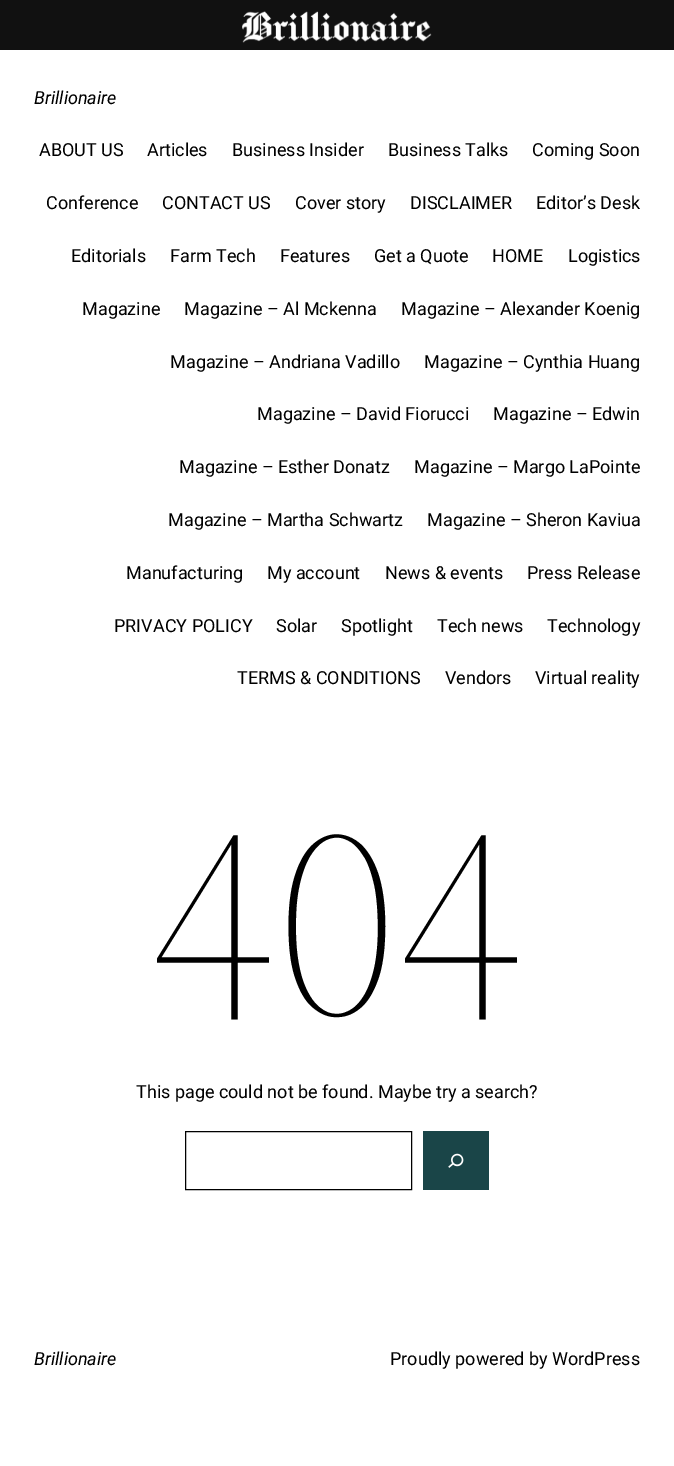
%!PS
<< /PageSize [674 1466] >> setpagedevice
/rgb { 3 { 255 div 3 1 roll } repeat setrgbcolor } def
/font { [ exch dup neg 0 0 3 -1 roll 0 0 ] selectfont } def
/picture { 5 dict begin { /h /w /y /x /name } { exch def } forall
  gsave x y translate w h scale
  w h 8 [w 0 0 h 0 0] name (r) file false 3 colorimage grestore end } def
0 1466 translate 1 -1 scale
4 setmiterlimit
255 255 255 rgb
0 0 674 1466 rectfill
17 17 17 rgb
0 0 674 50 rectfill
(img/1.rgb) 242 11 190 32 picture
0 0 0 rgb
185.5 1131.5 226 58 rectstroke
26 69 72 rgb
423 1131 66 59 rectfill
(img/2.rgb) 448 1153 16 15 picture
/Roboto-Italic 18 font
0 0 0 rgb
34 104 moveto (Brillionaire) show
/Roboto-Regular 18 font
[
  [(ABOUT US) 39 156]
  [(Articles) 147 156]
  [(Business Insider) 232 156]
  [(Business Talks) 388 156]
  [(Coming Soon) 532 156]
  [(Conference) 46 209]
  [(CONTACT US) 162 209]
  [(Cover story) 295 209]
  [(DISCLAIMER) 410 209]
  [(Editor’s Desk) 536 209]
  [(Editorials) 71 262]
  [(Farm Tech) 170 262]
  [(Features) 280 262]
  [(Get a Quote) 374 262]
  [(HOME) 492 262]
  [(Logistics) 568 262]
  [(Magazine) 82 315]
  [(Magazine – Al Mckenna) 184 315]
  [(Magazine – Alexander Koenig) 401 315]
  [(Magazine – Andriana Vadillo) 170 368]
  [(Magazine – Cynthia Huang) 424 368]
  [(Magazine – David Fiorucci) 257 420]
  [(Magazine – Edwin) 493 420]
  [(Magazine – Esther Donatz) 179 473]
  [(Magazine – Margo LaPointe) 414 473]
  [(Magazine – Martha Schwartz) 168 526]
  [(Magazine – Sheron Kaviua) 427 526]
  [(Manufacturing) 126 579]
  [(My account) 267 579]
  [(News & events) 385 579]
  [(Press Release) 527 579]
  [(PRIVACY POLICY) 114 632]
  [(Solar) 276 632]
  [(Spotlight) 341 632]
  [(Tech news) 437 632]
  [(Technology) 547 632]
  [(TERMS & CONDITIONS) 237 684]
  [(Vendors) 445 684]
  [(Virtual reality) 535 684]
] { aload pop moveto show } forall
/SourceSerif4-ExtraLight 270 font
151 1014 moveto (404) show
/Roboto-Regular 18 font
136 1098 moveto (This page could not be found. Maybe try a search?) show
/Roboto-Italic 18 font
34 1365 moveto (Brillionaire) show
/Roboto-Regular 18 font
390 1365 moveto (Proudly powered by WordPress) show
showpage
